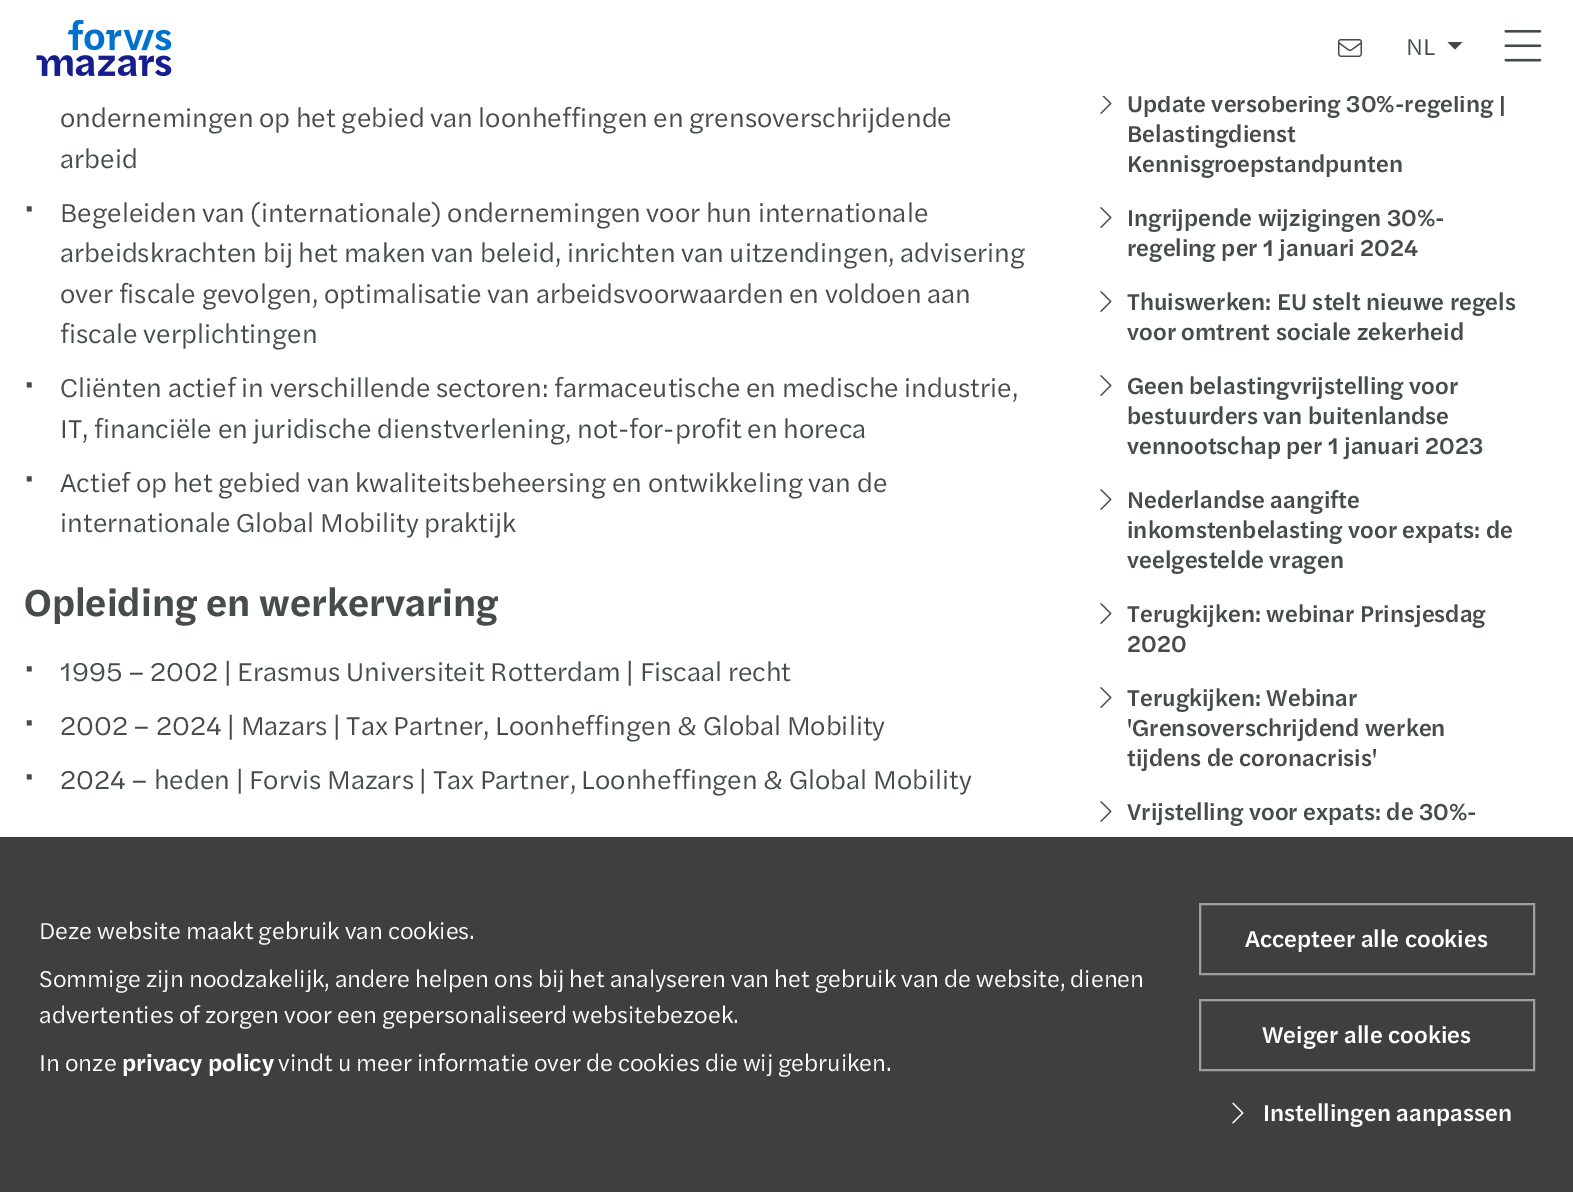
%!PS
<< /PageSize [1573 1192] >> setpagedevice
/rgb { 3 { 255 div 3 1 roll } repeat setrgbcolor } def
/font { [ exch dup neg 0 0 3 -1 roll 0 0 ] selectfont } def
/picture { 5 dict begin { /h /w /y /x /name } { exch def } forall
  gsave x y translate w h scale
  w h 8 [w 0 0 h 0 0] name (r) file false 3 colorimage grestore end } def
0 1192 translate 1 -1 scale
4 setmiterlimit
255 255 255 rgb
0 0 1573 1192 rectfill
(img/1.rgb) 36 20 136 57 picture
(img/2.rgb) 1338 39 24 18 picture
70 70 70 rgb
1455 49.5 moveto 1462.5 42 lineto 1447.5 42 lineto closepath fill
(img/3.rgb) 1504 30 38 32 picture
(img/4.rgb) 1100 96 12 18 picture
(img/5.rgb) 1100 207 12 21 picture
(img/5.rgb) 1100 291 12 21 picture
(img/5.rgb) 1100 375 12 21 picture
(img/5.rgb) 1100 489 12 21 picture
(img/5.rgb) 1100 603 12 21 picture
(img/5.rgb) 1100 687 12 21 picture
(img/5.rgb) 1100 801 12 21 picture
63 63 63 rgb
0 837 1573 355 rectfill
159 159 159 rgb
2 setlinewidth
1200 904 334 70 rectstroke
1200 1000 334 70 rectstroke
(img/6.rgb) 1232 1102 12 22 picture
/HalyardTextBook-Regular 24 font
70 75 75 rgb
1406 55 moveto (NL) show
/HalyardTextBook-Regular 27 font
60 127 moveto (ondernemingen op het gebied van loonheffingen en grensoverschrijdende) show
60 168 moveto (arbeid) show
/HalyardTextBook-Regular 30 font
24 217 moveto (•) show
/HalyardTextBook-Regular 27 font
[
  [(Begeleiden van \(internationale\) ondernemingen voor hun internationale) 60 222]
  [(arbeidskrachten bij het maken van beleid, inrichten van uitzendingen, advisering) 60 262]
  [(over fiscale gevolgen, optimalisatie van arbeidsvoorwaarden en voldoen aan) 60 303]
  [(fiscale verplichtingen) 60 343]
] { aload pop moveto show } forall
/HalyardTextBook-Regular 30 font
24 393 moveto (•) show
/HalyardTextBook-Regular 27 font
60 397 moveto (Cliënten actief in verschillende sectoren: farmaceutische en medische industrie,) show
60 438 moveto (IT, financiële en juridische dienstverlening, not-for-profit en horeca) show
/HalyardTextBook-Regular 30 font
24 487 moveto (•) show
/HalyardTextBook-Regular 27 font
60 492 moveto (Actief op het gebied van kwaliteitsbeheersing en ontwikkeling van de) show
60 532 moveto (internationale Global Mobility praktijk) show
/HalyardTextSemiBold-SemiBold 39 font
24 616 moveto (Opleiding en werkervaring) show
/HalyardTextBook-Regular 30 font
24 677 moveto (•) show
/HalyardTextBook-Regular 27 font
60 681 moveto (1995 – 2002 | Erasmus Universiteit Rotterdam | Fiscaal recht) show
/HalyardTextBook-Regular 30 font
24 731 moveto (•) show
/HalyardTextBook-Regular 27 font
60 735 moveto (2002 – 2024 | Mazars | Tax Partner, Loonheffingen & Global Mobility) show
/HalyardTextBook-Regular 30 font
24 785 moveto (•) show
/HalyardTextBook-Regular 27 font
60 789 moveto (2024 – heden | Forvis Mazars | Tax Partner, Loonheffingen & Global Mobility) show
/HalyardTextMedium-Medium 24 font
1127 112 moveto (Update versobering 30%-regeling |) show
255 255 255 rgb
1166 94 338 2 rectfill
70 75 75 rgb
[
  [(Belastingdienst) 1127 142]
  [(Kennisgroepstandpunten) 1127 172]
  [(Ingrijpende wijzigingen 30%-) 1127 226]
  [(regeling per 1 januari 2024) 1127 256]
  [(Thuiswerken: EU stelt nieuwe regels) 1127 310]
  [(voor omtrent sociale zekerheid) 1127 340]
  [(Geen belastingvrijstelling voor) 1127 394]
  [(bestuurders van buitenlandse) 1127 424]
  [(vennootschap per 1 januari 2023) 1127 454]
  [(Nederlandse aangifte) 1127 508]
  [(inkomstenbelasting voor expats: de) 1127 538]
  [(veelgestelde vragen) 1127 568]
  [(Terugkijken: webinar Prinsjesdag) 1127 622]
  [(2020) 1127 652]
  [(Terugkijken: Webinar) 1127 706]
  [('Grensoverschrijdend werken) 1127 736]
  [(tijdens de coronacrisis') 1127 766]
  [(Vrijstelling voor expats: de 30%-) 1127 820]
] { aload pop moveto show } forall
/HalyardTextBook-Regular 24 font
255 255 255 rgb
[
  [(Deze website maakt gebruik van cookies.) 39 939]
  [(Sommige zijn noodzakelijk, andere helpen ons bij het analyseren van het gebruik van de website, dienen) 39 987]
  [(advertenties of zorgen voor een gepersonaliseerd websitebezoek.) 39 1023]
  [(In onze) 39 1071]
] { aload pop moveto show } forall
/HalyardTextSemiBold-SemiBold 24 font
122 1071 moveto (privacy policy) show
/HalyardTextBook-Regular 24 font
278 1071 moveto (vindt u meer informatie over de cookies die wij gebruiken.) show
/HalyardTextMedium-Medium 24 font
[
  [(Accepteer alle cookies) 1245 947]
  [(Weiger alle cookies) 1262 1043]
  [(Instellingen aanpassen) 1263 1121]
] { aload pop moveto show } forall
showpage
